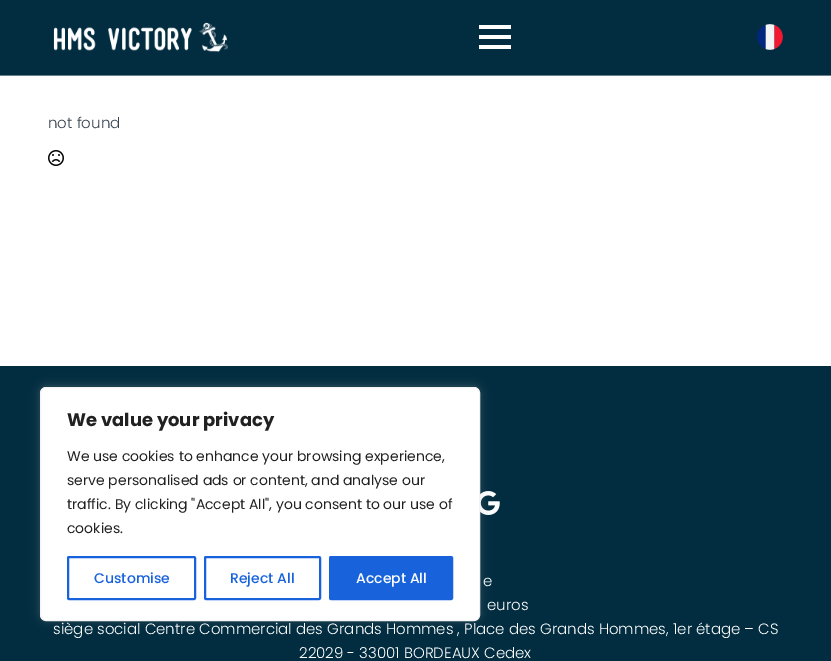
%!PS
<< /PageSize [831 661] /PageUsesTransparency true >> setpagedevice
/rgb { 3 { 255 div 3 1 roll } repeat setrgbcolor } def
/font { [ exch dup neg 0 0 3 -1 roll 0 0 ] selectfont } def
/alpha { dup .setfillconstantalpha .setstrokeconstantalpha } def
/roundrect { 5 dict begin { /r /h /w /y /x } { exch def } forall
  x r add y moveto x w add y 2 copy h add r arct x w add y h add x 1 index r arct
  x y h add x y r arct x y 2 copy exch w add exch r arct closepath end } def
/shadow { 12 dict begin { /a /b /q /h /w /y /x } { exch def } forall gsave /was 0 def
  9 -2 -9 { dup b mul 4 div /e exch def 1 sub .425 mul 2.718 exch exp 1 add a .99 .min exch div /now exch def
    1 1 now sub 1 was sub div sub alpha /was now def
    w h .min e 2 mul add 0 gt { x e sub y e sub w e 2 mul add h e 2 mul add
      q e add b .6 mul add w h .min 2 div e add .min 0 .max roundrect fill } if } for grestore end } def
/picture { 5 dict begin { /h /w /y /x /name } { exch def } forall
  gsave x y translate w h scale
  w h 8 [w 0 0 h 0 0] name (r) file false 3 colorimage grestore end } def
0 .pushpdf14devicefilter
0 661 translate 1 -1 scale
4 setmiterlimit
255 255 255 rgb
0 0 831 661 rectfill
2 45 64 rgb
0 0 831 75 rectfill
(img/1.rgb) 53 22 175 31 picture
[
  [479 35 32 4 255 255 255]
  [479 25 32 4 255 255 255]
  [479 45 32 4 255 255 255]
] { aload pop rgb rectfill } forall
(img/2.rgb) 757 24 26 26 picture
103 129 140 rgb
0 75 831 1 rectfill
(img/3.rgb) 48 150 16 16 picture
2 45 64 rgb
0 366 831 295 rectfill
(img/4.rgb) 480 491 20 24 picture
172 171 171 rgb
40 386 440 234 6 5 0.3 shadow
255 255 255 rgb
40.5 387.5 439 233 5.5 roundrect gsave fill grestore
244 244 244 rgb
stroke
24 99 220 rgb
2 setlinewidth
68 557 127 42 1 roundrect stroke
205 557 115 42 1 roundrect stroke
330 557 122 42 1 roundrect gsave fill grestore
stroke
/Poppins-Light 15 font
55 65 81 rgb
48 128 moveto (not found) show
/Poppins-Bold 18 font
33 33 33 rgb
67 426 moveto (We value your privacy) show
/Poppins-Regular 14 font
[
  [(We use cookies to enhance your browsing experience,) 67 461]
  [(serve personalised ads or content, and analyse our) 67 485]
  [(traffic. By clicking "Accept All", you consent to our use of) 67 509]
  [(cookies.) 67 533]
] { aload pop moveto show } forall
/Poppins-Medium 14 font
24 99 220 rgb
94 583 moveto (Customise) show
230 583 moveto (Reject All) show
255 255 255 rgb
356 583 moveto (Accept All) show
/Poppins-Light 15 font
[
  [(e) 483 586]
  [(euros) 487 610]
  [(siège social Centre Commercial des Grands Hommes , Place des Grands Hommes, 1er étage – CS) 53 634]
  [(22029 - 33001 BORDEAUX Cedex) 299 658]
] { aload pop moveto show } forall
.poppdf14devicefilter showpage
